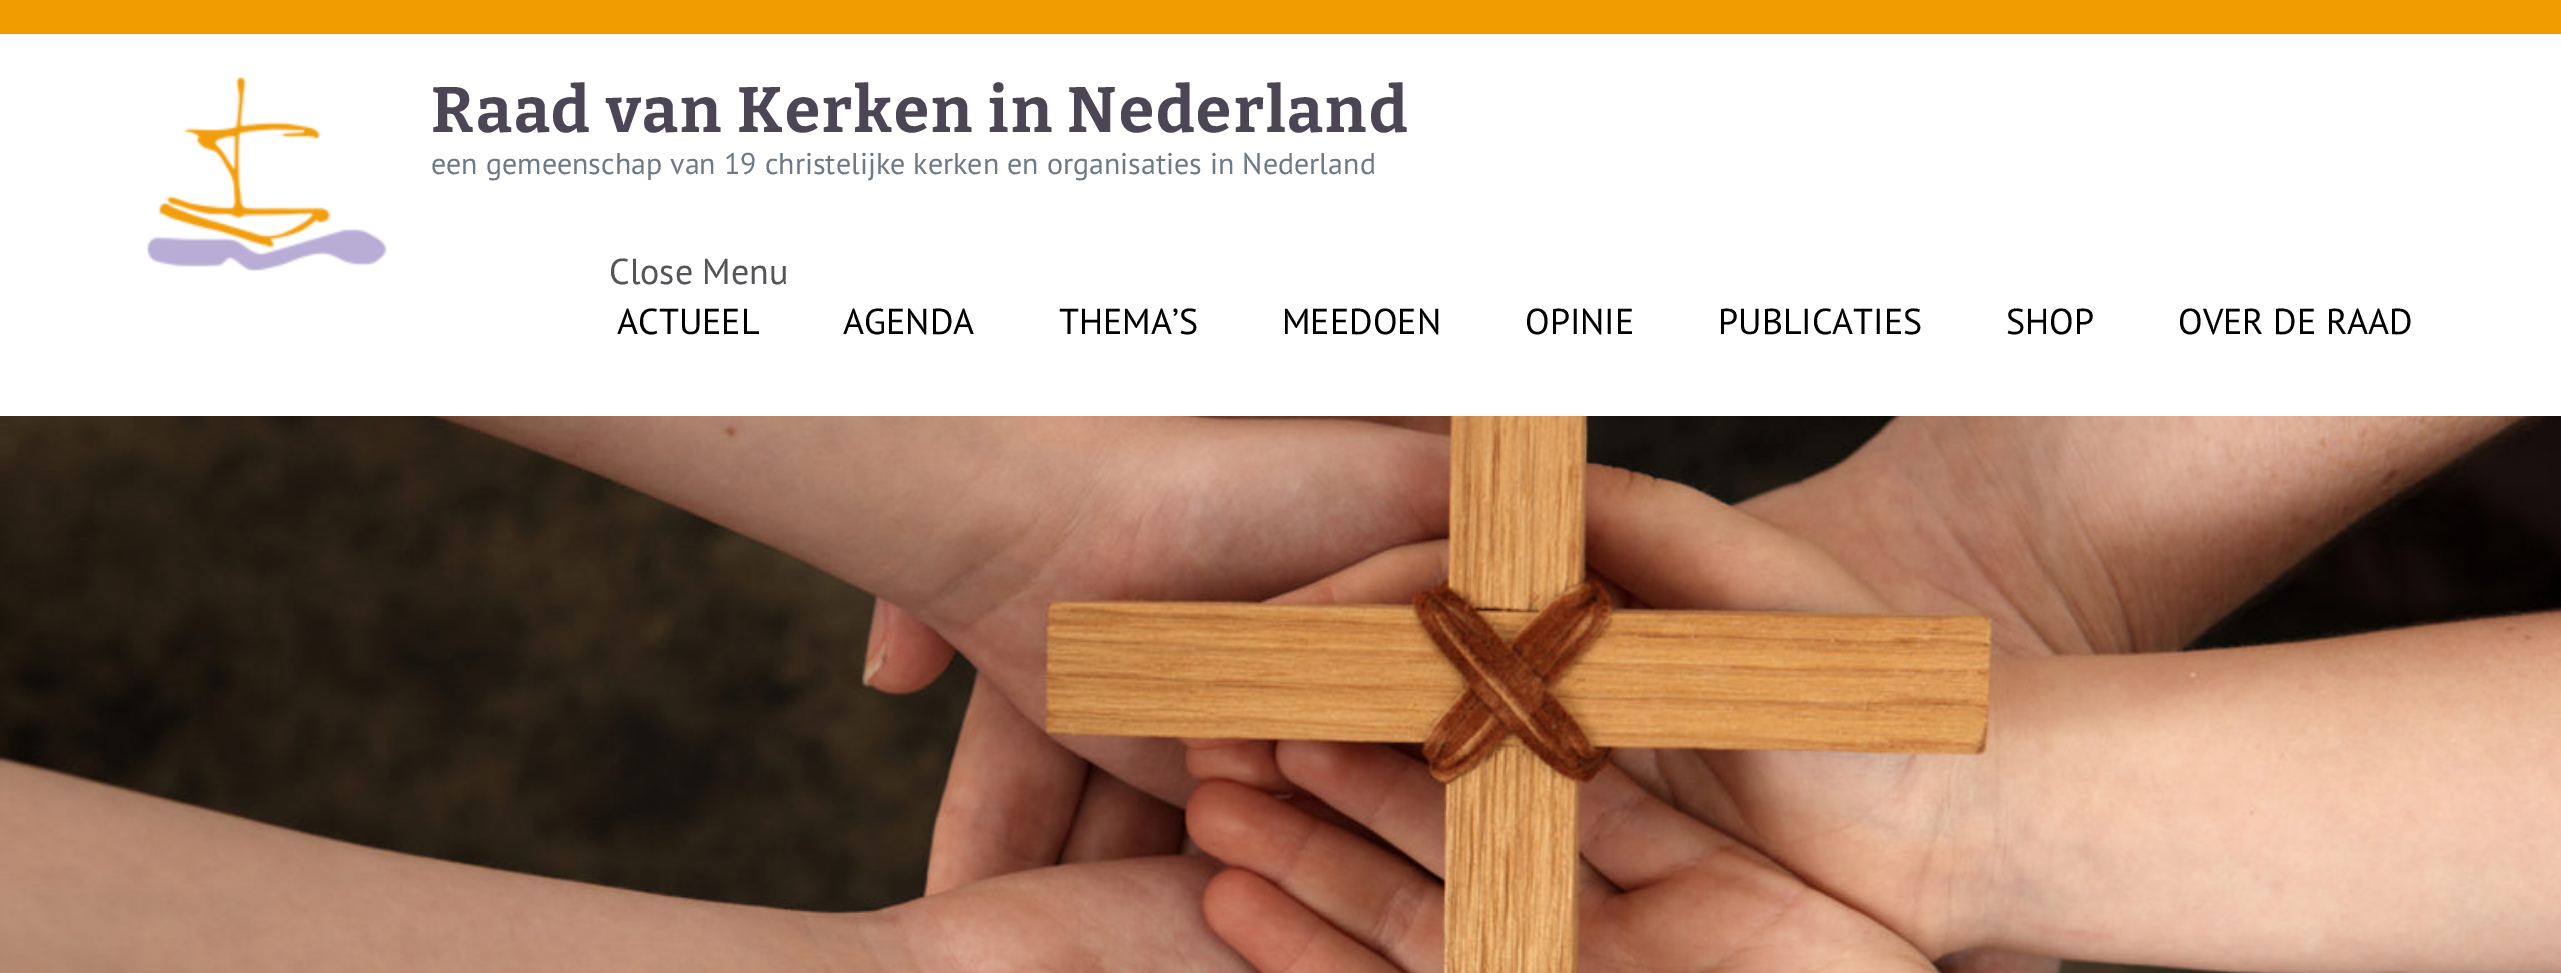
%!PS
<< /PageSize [2561 973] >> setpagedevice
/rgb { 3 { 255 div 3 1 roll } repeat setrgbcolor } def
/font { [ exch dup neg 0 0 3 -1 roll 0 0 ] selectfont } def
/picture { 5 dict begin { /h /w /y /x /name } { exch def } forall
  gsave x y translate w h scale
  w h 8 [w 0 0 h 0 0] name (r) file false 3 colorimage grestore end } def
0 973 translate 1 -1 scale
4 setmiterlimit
255 255 255 rgb
0 0 2561 973 rectfill
241 156 0 rgb
0 0 2561 34 rectfill
(img/1.rgb) 147 77 240 194 picture
(img/2.rgb) 0 416 2561 557 picture
/Bitter-Thin 64 font
75 69 84 rgb
431 132 moveto 2 0 (Raad van Kerken in Nederland) ashow
/PTSans-Regular 30 font
109 121 135 rgb
431 174 moveto (een gemeenschap van 19 christelijke kerken en organisaties in Nederland) show
/PTSans-Regular 36 font
85 84 88 rgb
609 284 moveto (Close Menu) show
0 0 0 rgb
[
  [(ACTUEEL) 617 334]
  [(AGENDA) 843 334]
  [(THEMA’S) 1059 334]
  [(MEEDOEN) 1282 334]
  [(OPINIE) 1525 334]
  [(PUBLICATIES) 1718 334]
  [(SHOP) 2006 334]
  [(OVER DE RAAD) 2178 334]
] { aload pop moveto show } forall
showpage
